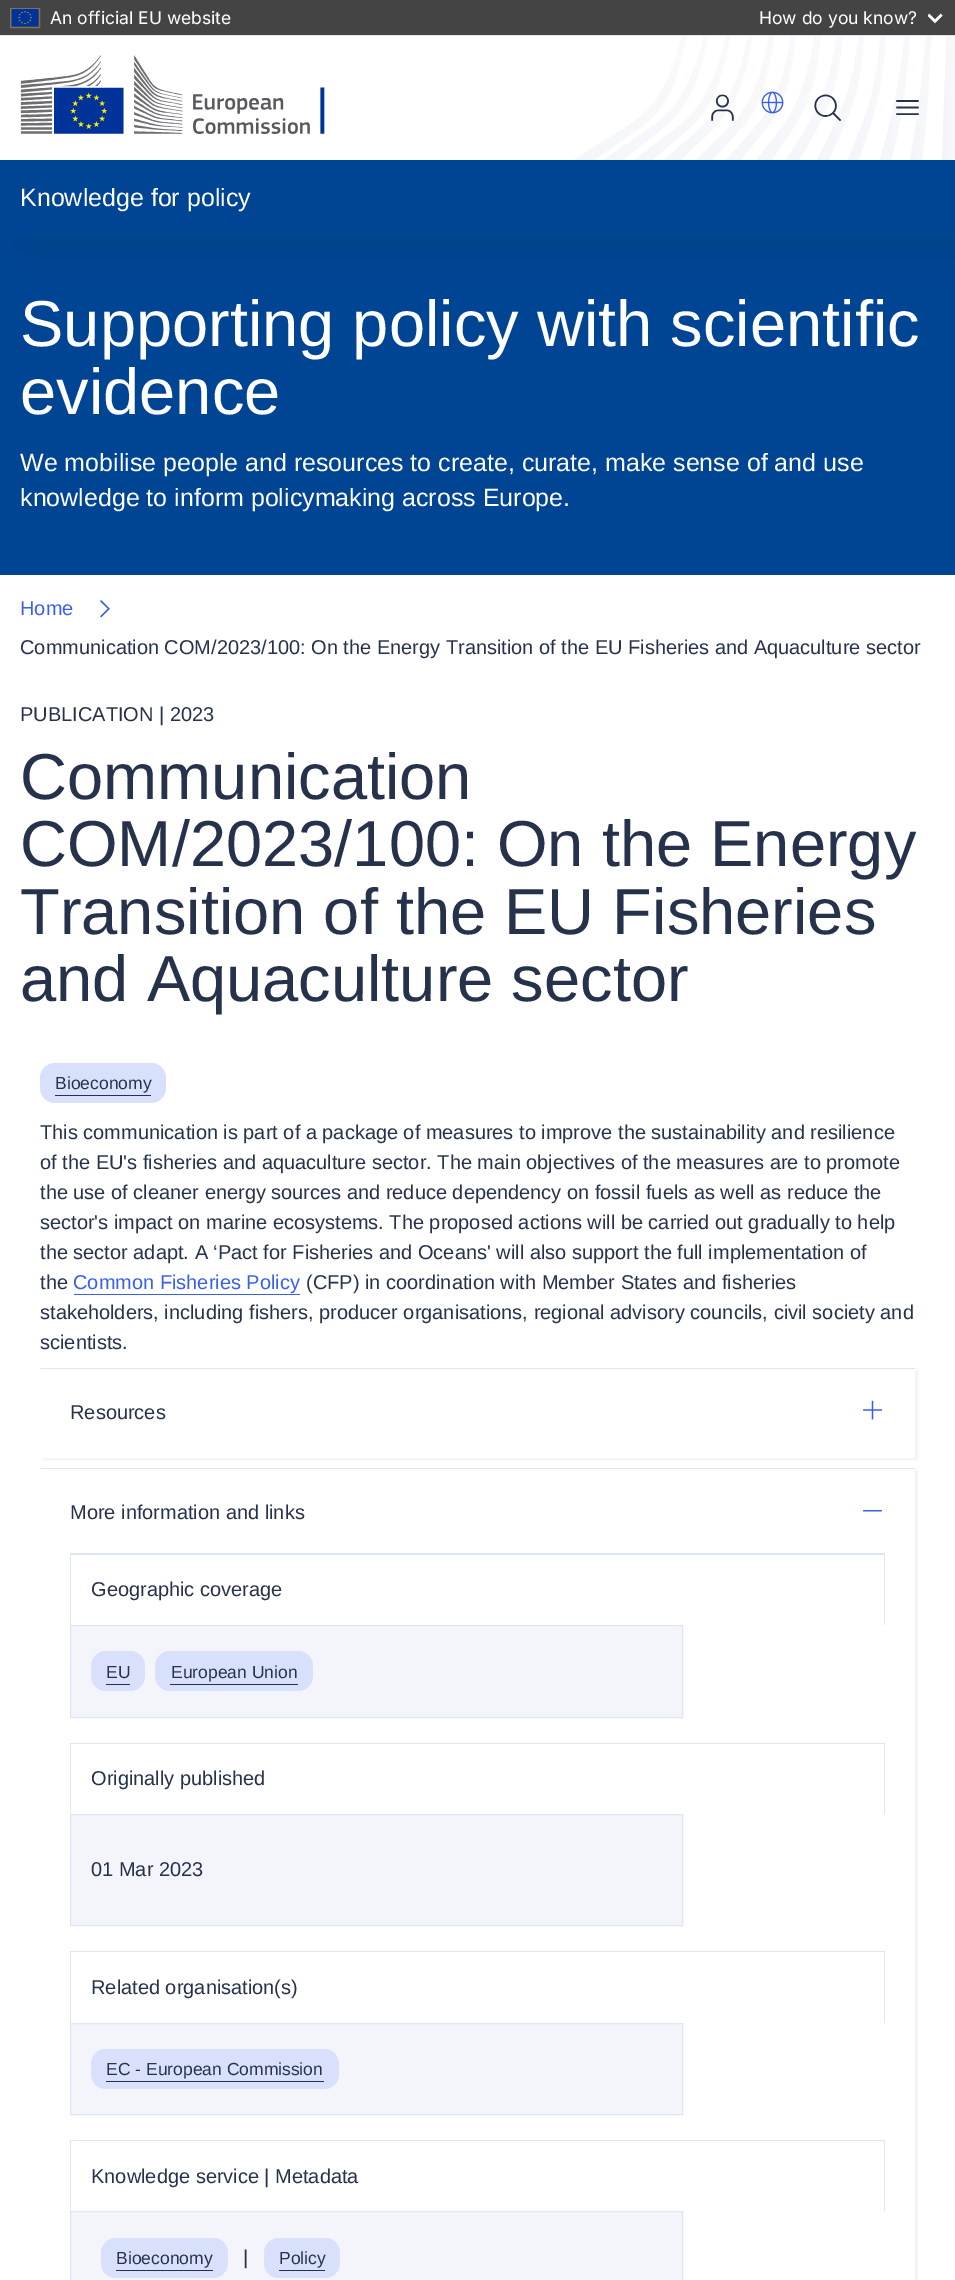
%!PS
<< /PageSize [955 2280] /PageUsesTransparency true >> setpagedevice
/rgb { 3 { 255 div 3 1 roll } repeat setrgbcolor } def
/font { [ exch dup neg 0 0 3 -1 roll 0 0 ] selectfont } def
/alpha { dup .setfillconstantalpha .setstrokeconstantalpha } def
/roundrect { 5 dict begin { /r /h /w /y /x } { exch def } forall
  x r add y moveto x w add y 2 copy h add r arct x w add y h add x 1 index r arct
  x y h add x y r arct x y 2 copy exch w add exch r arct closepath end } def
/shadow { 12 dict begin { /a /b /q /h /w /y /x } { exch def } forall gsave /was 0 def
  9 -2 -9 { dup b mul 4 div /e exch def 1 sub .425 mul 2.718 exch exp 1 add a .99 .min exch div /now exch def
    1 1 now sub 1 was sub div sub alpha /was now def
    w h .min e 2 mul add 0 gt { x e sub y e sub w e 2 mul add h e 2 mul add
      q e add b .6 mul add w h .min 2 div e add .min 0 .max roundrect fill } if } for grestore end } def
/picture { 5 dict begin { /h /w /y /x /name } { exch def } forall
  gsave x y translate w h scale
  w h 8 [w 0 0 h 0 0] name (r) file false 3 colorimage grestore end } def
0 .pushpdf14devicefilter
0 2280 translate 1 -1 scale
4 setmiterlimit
255 255 255 rgb
0 0 955 2280 rectfill
0 68 148 rgb
0 235 955 340 rectfill
38 50 75 rgb
30 65 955 200 0 22.5 0.05 shadow
15 50 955 200 0 7.5 0.05 shadow
0 35 955 200 0 4 0.06 shadow
68 68 68 rgb
0 0 955 35 rectfill
115 115 115 rgb
10.5 8.5 29 19 rectstroke
(img/1.rgb) 12 9 26 17 picture
(img/2.rgb) 928 13 15 11 picture
255 255 255 rgb
0 36 955 124 rectfill
(img/4.rgb) 573 36 382 124 picture
(img/3.rgb) 896 100 23 15 picture
224 229 245 rgb
0 35 955 1 rectfill
(img/5.rgb) 20 55 305 79 picture
(img/6.rgb) 711 94 23 27 picture
(img/7.rgb) 761 91 23 23 picture
(img/8.rgb) 814 94 28 28 picture
0 68 148 rgb
0 160 955 75 rectfill
(img/9.rgb) 100 600 10 18 picture
216 224 251 rgb
40 1063 126 40 15 roundrect fill
38 50 75 rgb
55 1095 96 1 rectfill
56 96 237 rgb
74 1294 226 1 rectfill
gsave
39 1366 moveto 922 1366 lineto 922 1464 lineto 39 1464 lineto closepath 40 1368 moveto 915 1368 lineto 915 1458 lineto 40 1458 lineto closepath eoclip newpath
38 50 75 rgb
43 1370 875 90 0 1 0.05 shadow
grestore
224 229 245 rgb
40 1368 875 1 rectfill
(img/10.rgb) 863 1400 19 20 picture
gsave
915 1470 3 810 rectclip
38 50 75 rgb
43 1470 875 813 0 1 0.05 shadow
grestore
40 1468 875 1 rectfill
(img/11.rgb) 863 1510 19 2 picture
[
  [70 1553 815 2 224 229 245]
  [884 1554 1 71 224 229 245]
  [70 1554 1 71 224 229 245]
] { aload pop rgb rectfill } forall
243 245 251 rgb
70.5 1625.5 moveto 682.5 1625.5 lineto 682.5 1717.5 lineto 70.5 1717.5 lineto closepath gsave fill grestore
224 229 245 rgb
stroke
216 224 251 rgb
91 1651 54 40 15 roundrect fill
38 50 75 rgb
106 1684 24 1 rectfill
216 224 251 rgb
155 1651 158 40 15 roundrect fill
[
  [170 1684 128 1 38 50 75]
  [70 1743 815 1 224 229 245]
  [884 1743 1 71 224 229 245]
  [70 1743 1 71 224 229 245]
] { aload pop rgb rectfill } forall
243 245 251 rgb
70.5 1814.5 moveto 682.5 1814.5 lineto 682.5 1925.5 lineto 70.5 1925.5 lineto closepath gsave fill grestore
224 229 245 rgb
stroke
[
  [70 1951 815 1 224 229 245]
  [884 1951 1 72 224 229 245]
  [70 1951 1 72 224 229 245]
] { aload pop rgb rectfill } forall
243 245 251 rgb
70.5 2023.5 moveto 682.5 2023.5 lineto 682.5 2114.5 lineto 70.5 2114.5 lineto closepath gsave fill grestore
224 229 245 rgb
stroke
216 224 251 rgb
91 2049 248 40 15 roundrect fill
[
  [106 2081 218 1 38 50 75]
  [70 2140 815 1 224 229 245]
  [884 2140 1 71 224 229 245]
  [70 2140 1 71 224 229 245]
] { aload pop rgb rectfill } forall
243 245 251 rgb
70.5 2211.5 moveto 682.5 2211.5 lineto 682.5 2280.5 lineto 70.5 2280.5 lineto closepath gsave fill grestore
224 229 245 rgb
stroke
216 224 251 rgb
101 2238 127 40 15 roundrect fill
38 50 75 rgb
116 2270 97 1 rectfill
216 224 251 rgb
264 2238 76 40 15 roundrect fill
38 50 75 rgb
279 2270 46 1 rectfill
/Inter-Regular 17.5 font
255 255 255 rgb
50 24 moveto (An official EU website) show
759 24 moveto (How do you know?) show
/LiberationSans-Regular 25 font
20 206 moveto (Knowledge for policy) show
/LiberationSans-Regular 65 font
20 346 moveto (Supporting policy with scientific) show
20 414 moveto (evidence) show
/LiberationSans-Regular 25 font
20 471 moveto (We mobilise people and resources to create, curate, make sense of and use) show
20 506 moveto (knowledge to inform policymaking across Europe.) show
/LiberationSans-Regular 20 font
56 96 237 rgb
20 615 moveto (Home) show
38 50 75 rgb
20 654 moveto (Communication COM/2023/100: On the Energy Transition of the EU Fisheries and Aquaculture sector) show
20 721 moveto (PUBLICATION | 2023) show
/LiberationSans-Regular 65 font
[
  [(Communication) 20 799]
  [(COM/2023/100: On the Energy) 20 866]
  [(Transition of the EU Fisheries) 20 934]
  [(and Aquaculture sector) 20 1001]
] { aload pop moveto show } forall
/LiberationSans-Regular 17.5 font
55 1089 moveto (Bioeconomy) show
/LiberationSans-Regular 20 font
[
  [(This communication is part of a package of measures to improve the sustainability and resilience) 40 1139]
  [(of the EU's fisheries and aquaculture sector. The main objectives of the measures are to promote) 40 1169]
  [(the use of cleaner energy sources and reduce dependency on fossil fuels as well as reduce the) 40 1199]
  [(sector's impact on marine ecosystems. The proposed actions will be carried out gradually to help) 40 1229]
  [(the sector adapt. A ‘Pact for Fisheries and Oceans' will also support the full implementation of) 40 1259]
  [(the) 40 1289]
] { aload pop moveto show } forall
56 96 237 rgb
73 1289 moveto (Common Fisheries Policy) show
38 50 75 rgb
[
  [(\(CFP\) in coordination with Member States and fisheries) 306 1289]
  [(stakeholders, including fishers, producer organisations, regional advisory councils, civil society and) 40 1319]
  [(scientists.) 40 1349]
  [(Resources) 70 1419]
  [(More information and links) 70 1519]
  [(Geographic coverage) 91 1596]
] { aload pop moveto show } forall
/LiberationSans-Regular 17.5 font
106 1678 moveto (EU) show
171 1678 moveto (European Union) show
/LiberationSans-Regular 20 font
[
  [(Originally published) 91 1785]
  [(01 Mar 2023) 91 1876]
  [(Related organisation\(s\)) 91 1994]
] { aload pop moveto show } forall
/LiberationSans-Regular 17.5 font
106 2075 moveto (EC - European Commission) show
/LiberationSans-Regular 20 font
91 2183 moveto (Knowledge service | Metadata) show
/LiberationSans-Regular 17.5 font
116 2264 moveto (Bioeconomy) show
/LiberationSans-Regular 20 font
243 2264 moveto (|) show
/LiberationSans-Regular 17.5 font
279 2264 moveto (Policy) show
.poppdf14devicefilter showpage
